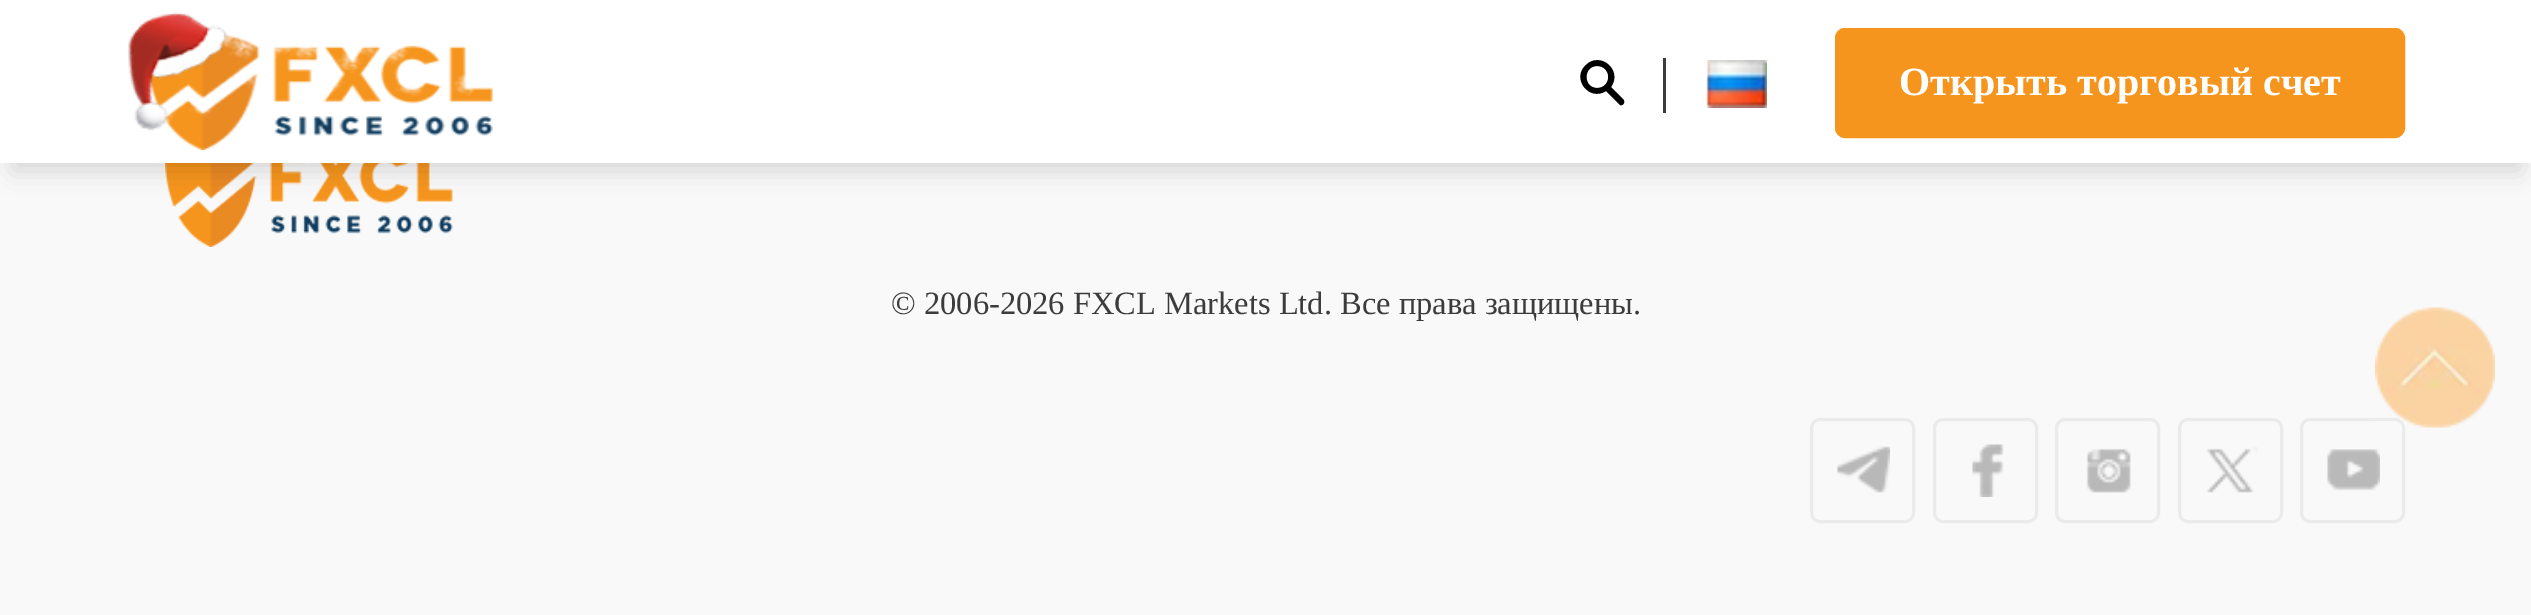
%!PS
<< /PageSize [2531 615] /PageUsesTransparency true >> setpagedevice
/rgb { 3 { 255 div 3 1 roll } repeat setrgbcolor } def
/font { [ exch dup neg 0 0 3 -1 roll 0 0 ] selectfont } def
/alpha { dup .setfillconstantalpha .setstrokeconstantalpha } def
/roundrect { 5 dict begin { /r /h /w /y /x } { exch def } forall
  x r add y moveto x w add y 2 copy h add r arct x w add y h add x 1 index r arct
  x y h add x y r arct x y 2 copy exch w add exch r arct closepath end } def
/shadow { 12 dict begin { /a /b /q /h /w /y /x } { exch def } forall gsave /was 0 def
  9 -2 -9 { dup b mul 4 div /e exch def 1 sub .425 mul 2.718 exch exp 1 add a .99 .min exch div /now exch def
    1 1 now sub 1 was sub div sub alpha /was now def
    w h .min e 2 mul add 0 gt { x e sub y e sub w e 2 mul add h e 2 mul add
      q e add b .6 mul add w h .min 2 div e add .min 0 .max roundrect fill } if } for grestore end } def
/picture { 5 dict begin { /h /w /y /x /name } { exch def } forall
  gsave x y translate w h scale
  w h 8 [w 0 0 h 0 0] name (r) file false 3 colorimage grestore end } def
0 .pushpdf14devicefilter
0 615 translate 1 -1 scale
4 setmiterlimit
249 249 249 rgb
0 0 2531 615 rectfill
(img/3.rgb) 165 163 288 84 picture
0 0 0 rgb
13 33 2507 137 0 12.5 0.15 shadow
255 255 255 rgb
0 0 2531 163 rectfill
(img/1.rgb) 127 12 366 138 picture
60 60 60 rgb
1663 58 3 55 rectfill
0 0 0 rgb
1611 87 moveto 1623 70 1600 51 1586 65 curveto 1571 78 1589 102 1606 91 curveto 1620 105 lineto 1623 106 1626 102 1623 99 curveto closepath 1597 88 moveto 1583 88 1583 66 1597 66 curveto 1612 66 1612 88 1597 88 curveto closepath fill
(img/2.rgb) 1706 60 61 48 picture
246 149 30 rgb
1836.5 29.5 567 107 8.5 roundrect gsave fill grestore
3 setlinewidth
stroke
235 235 235 rgb
1811.5 419.5 102 102 8.5 roundrect stroke
(img/4.rgb) 1837 446 53 47 picture
1934.5 419.5 102 102 8.5 roundrect stroke
(img/5.rgb) 1972 444 32 53 picture
2056.5 419.5 102 102 8.5 roundrect stroke
(img/6.rgb) 2086 448 45 45 picture
2179.5 419.5 102 102 8.5 roundrect stroke
(img/7.rgb) 2207 447 51 46 picture
2301.5 419.5 102 102 8.5 roundrect stroke
(img/8.rgb) 2327 449 53 42 picture
(img/9.rgb) 2375 307 120 121 picture
/LiberationSerif-Bold 40 font
255 255 255 rgb
1899 95 moveto (Открыть торговый счет) show
/LiberationSerif-Regular 32.5 font
60 60 60 rgb
891 314 moveto (© 2006-2026 FXCL Markets Ltd. Все права защищены.) show
.poppdf14devicefilter showpage
